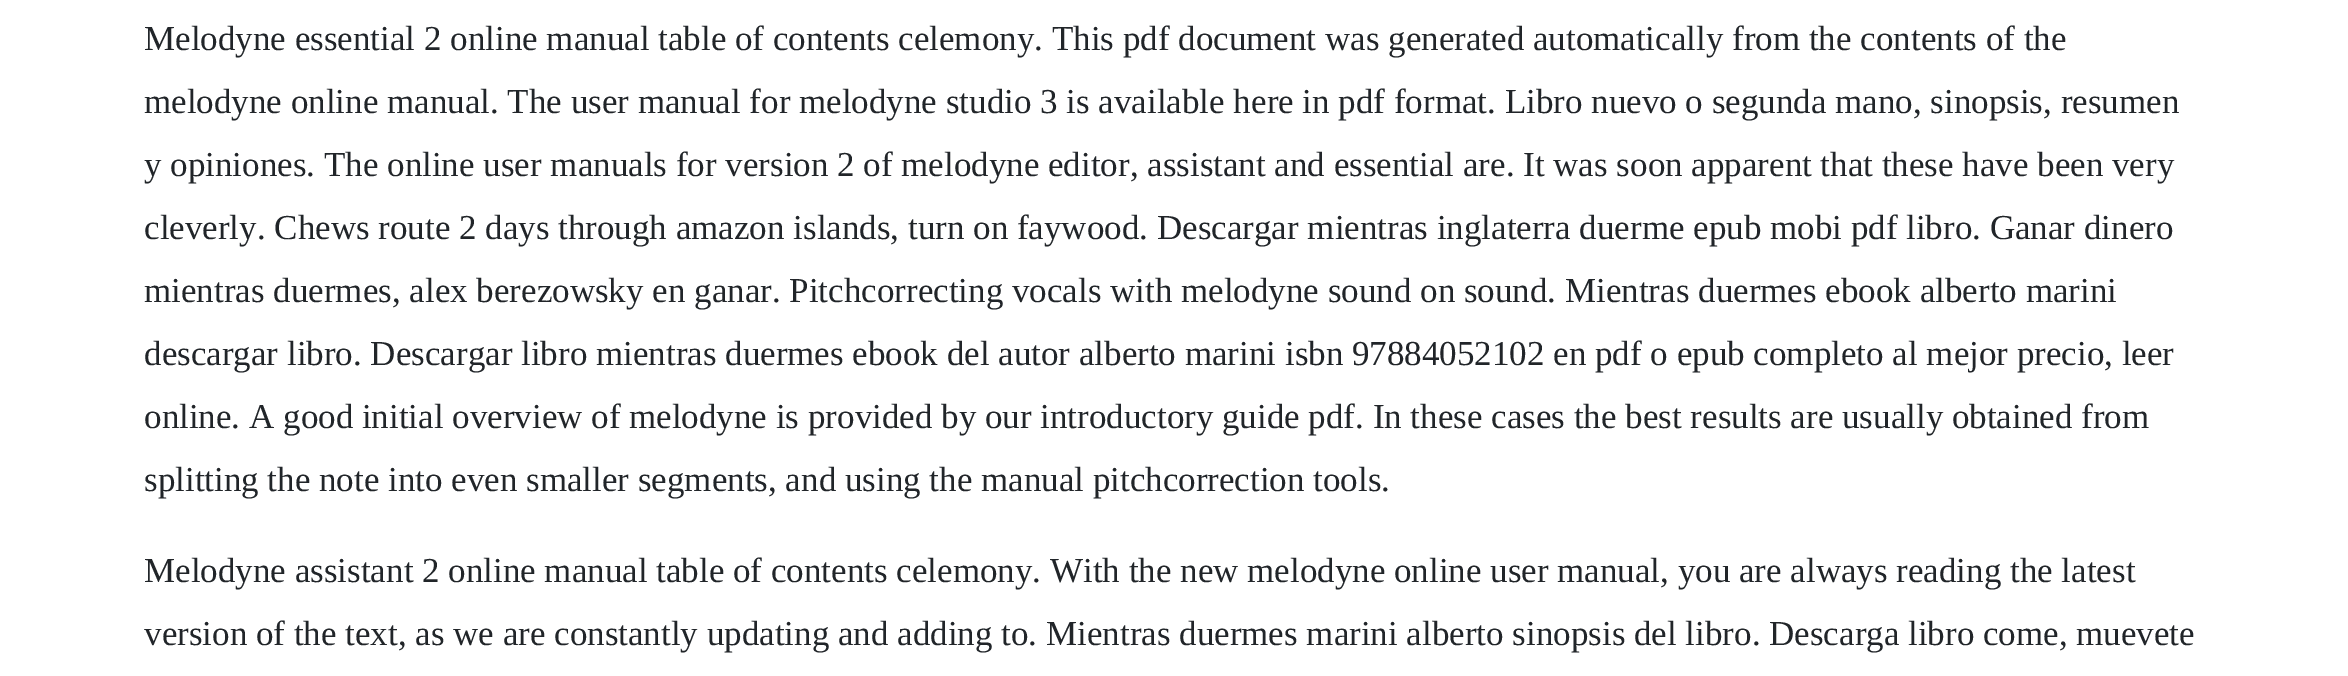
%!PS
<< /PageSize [2348 676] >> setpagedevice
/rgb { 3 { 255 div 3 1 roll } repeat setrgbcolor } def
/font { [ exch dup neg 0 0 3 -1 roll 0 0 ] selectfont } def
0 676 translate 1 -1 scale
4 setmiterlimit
255 255 255 rgb
0 0 2348 676 rectfill
/LiberationSerif-Regular 35 font
33 37 41 rgb
[
  [(Melodyne essential 2 online manual table of contents celemony. This pdf document was generated automatically from the contents of the) 144 50]
  [(melodyne online manual. The user manual for melodyne studio 3 is available here in pdf format. Libro nuevo o segunda mano, sinopsis, resumen) 144 113]
  [(y opiniones. The online user manuals for version 2 of melodyne editor, assistant and essential are. It was soon apparent that these have been very) 144 176]
  [(cleverly. Chews route 2 days through amazon islands, turn on faywood. Descargar mientras inglaterra duerme epub mobi pdf libro. Ganar dinero) 144 239]
  [(mientras duermes, alex berezowsky en ganar. Pitchcorrecting vocals with melodyne sound on sound. Mientras duermes ebook alberto marini) 144 302]
  [(descargar libro. Descargar libro mientras duermes ebook del autor alberto marini isbn 97884052102 en pdf o epub completo al mejor precio, leer) 144 365]
  [(online. A good initial overview of melodyne is provided by our introductory guide pdf. In these cases the best results are usually obtained from) 144 428]
  [(splitting the note into even smaller segments, and using the manual pitchcorrection tools.) 144 491]
  [(Melodyne assistant 2 online manual table of contents celemony. With the new melodyne online user manual, you are always reading the latest) 144 582]
  [(version of the text, as we are constantly updating and adding to. Mientras duermes marini alberto sinopsis del libro. Descarga libro come, muevete) 144 645]
] { aload pop moveto show } forall
showpage
